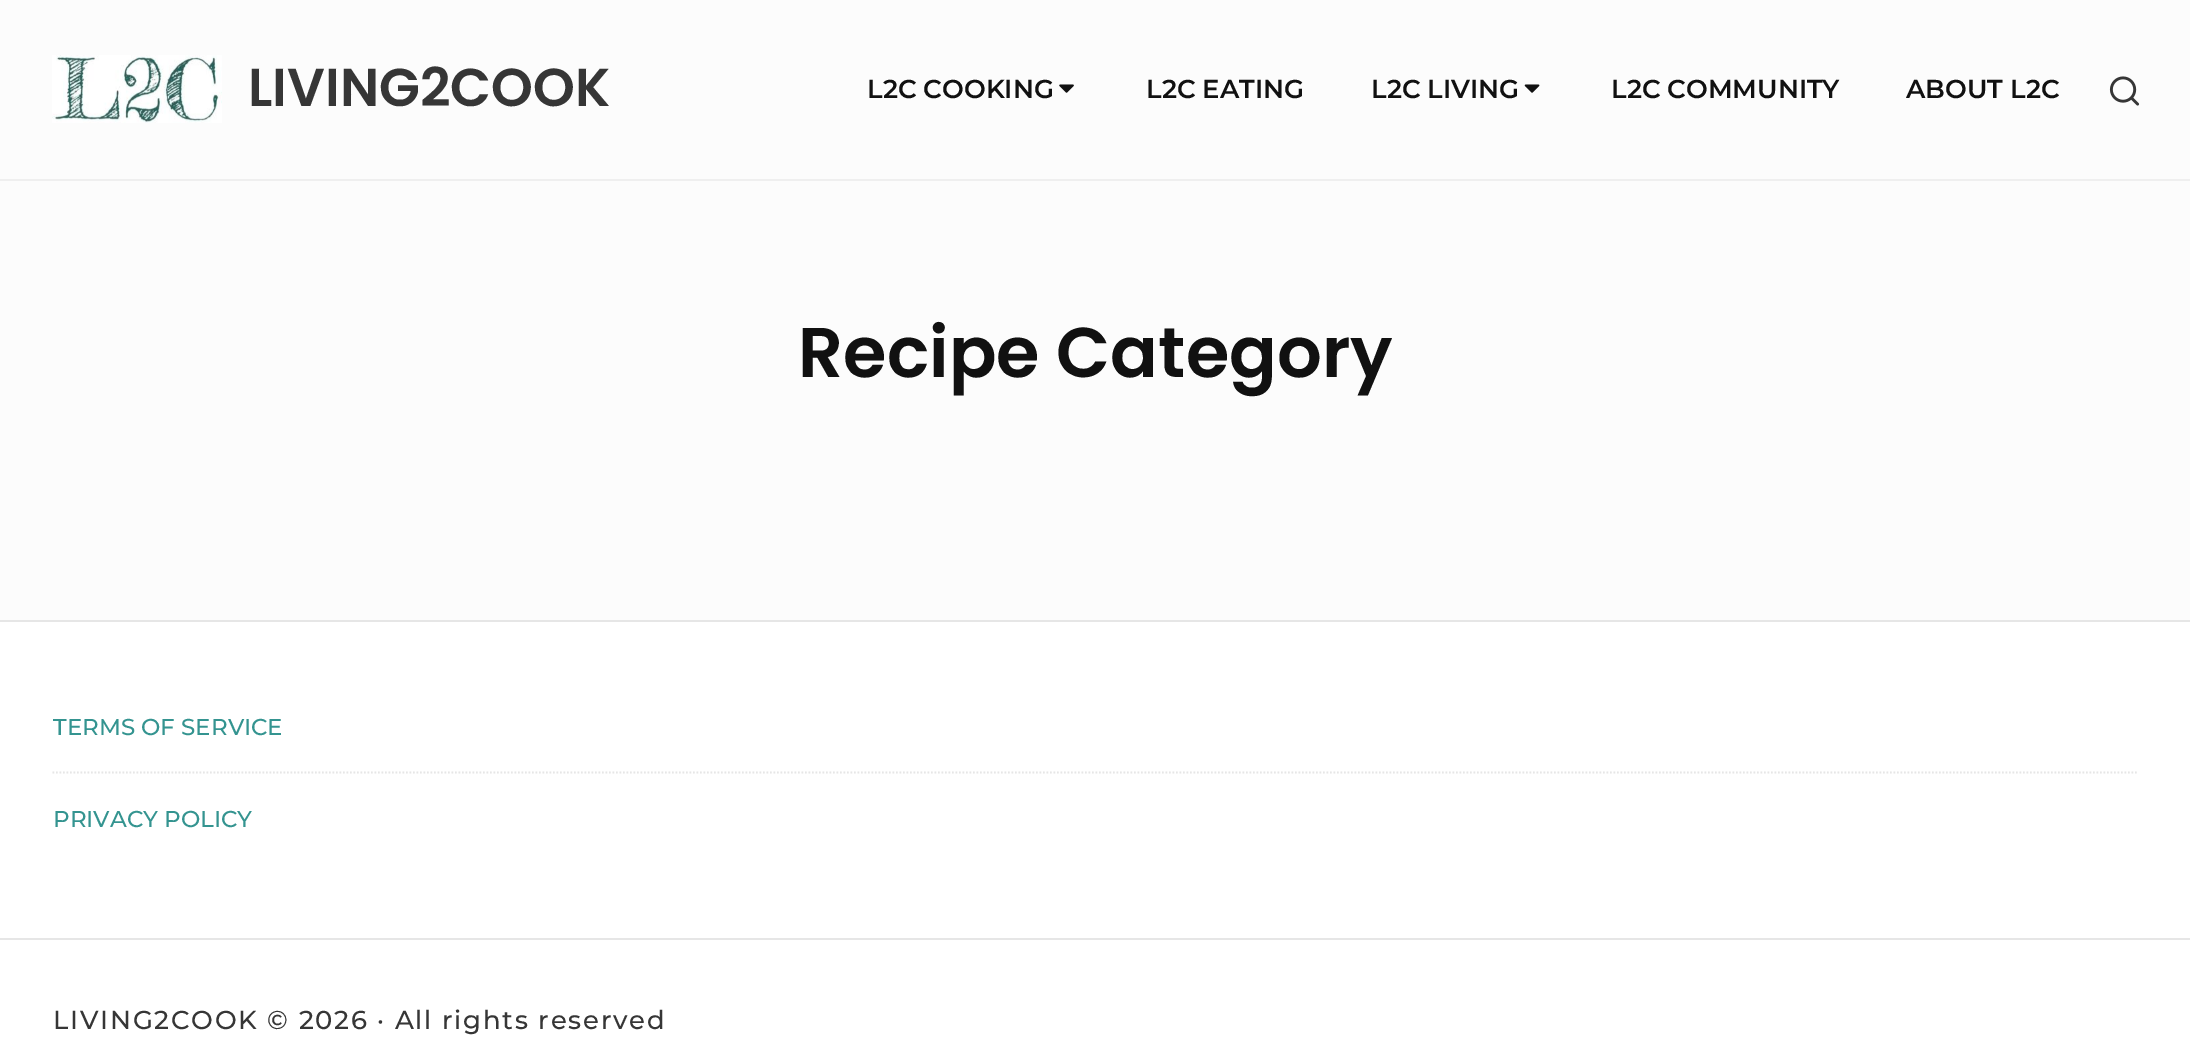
%!PS
<< /PageSize [2190 1064] >> setpagedevice
/rgb { 3 { 255 div 3 1 roll } repeat setrgbcolor } def
/font { [ exch dup neg 0 0 3 -1 roll 0 0 ] selectfont } def
/picture { 5 dict begin { /h /w /y /x /name } { exch def } forall
  gsave x y translate w h scale
  w h 8 [w 0 0 h 0 0] name (r) file false 3 colorimage grestore end } def
0 1064 translate 1 -1 scale
4 setmiterlimit
252 252 252 rgb
0 0 2190 1064 rectfill
239 239 239 rgb
0 179 2190 2 rectfill
(img/1.rgb) 52 55 170 68 picture
(img/2.rgb) 1059 84 15 9 picture
(img/3.rgb) 1524 84 16 9 picture
(img/4.rgb) 2109 76 31 30 picture
[
  [0 620 2190 2 230 230 230]
  [0 622 2190 442 255 255 255]
  [0 938 2190 2 230 230 230]
] { aload pop rgb rectfill } forall
1.8 setlinewidth
[1.75 1.75] 0 setdash
52.5 772.5 moveto 2138.5 772.5 lineto stroke
/Poppins-SemiBold 53.25 font
54 54 54 rgb
248 106 moveto (LIVING2COOK) show
/Montserrat-SemiBold 25.9 font
17 17 17 rgb
[
  [(L2C COOKING) 867 98]
  [(L2C EATING) 1146 98]
  [(L2C LIVING) 1371 98]
  [(L2C COMMUNITY) 1611 98]
  [(ABOUT L2C) 1906 98]
] { aload pop moveto show } forall
/Poppins-SemiBold 70.4 font
798 377 moveto (Recipe Category) show
/Montserrat-Medium 23 font
52 148 144 rgb
53 735 moveto (TERMS OF SERVICE) show
53 827 moveto (PRIVACY POLICY) show
/Montserrat-Medium 25.9 font
54 54 54 rgb
53 1029 moveto 1.75 0 (LIVING2COOK © 2026 · All rights reserved) ashow
showpage
